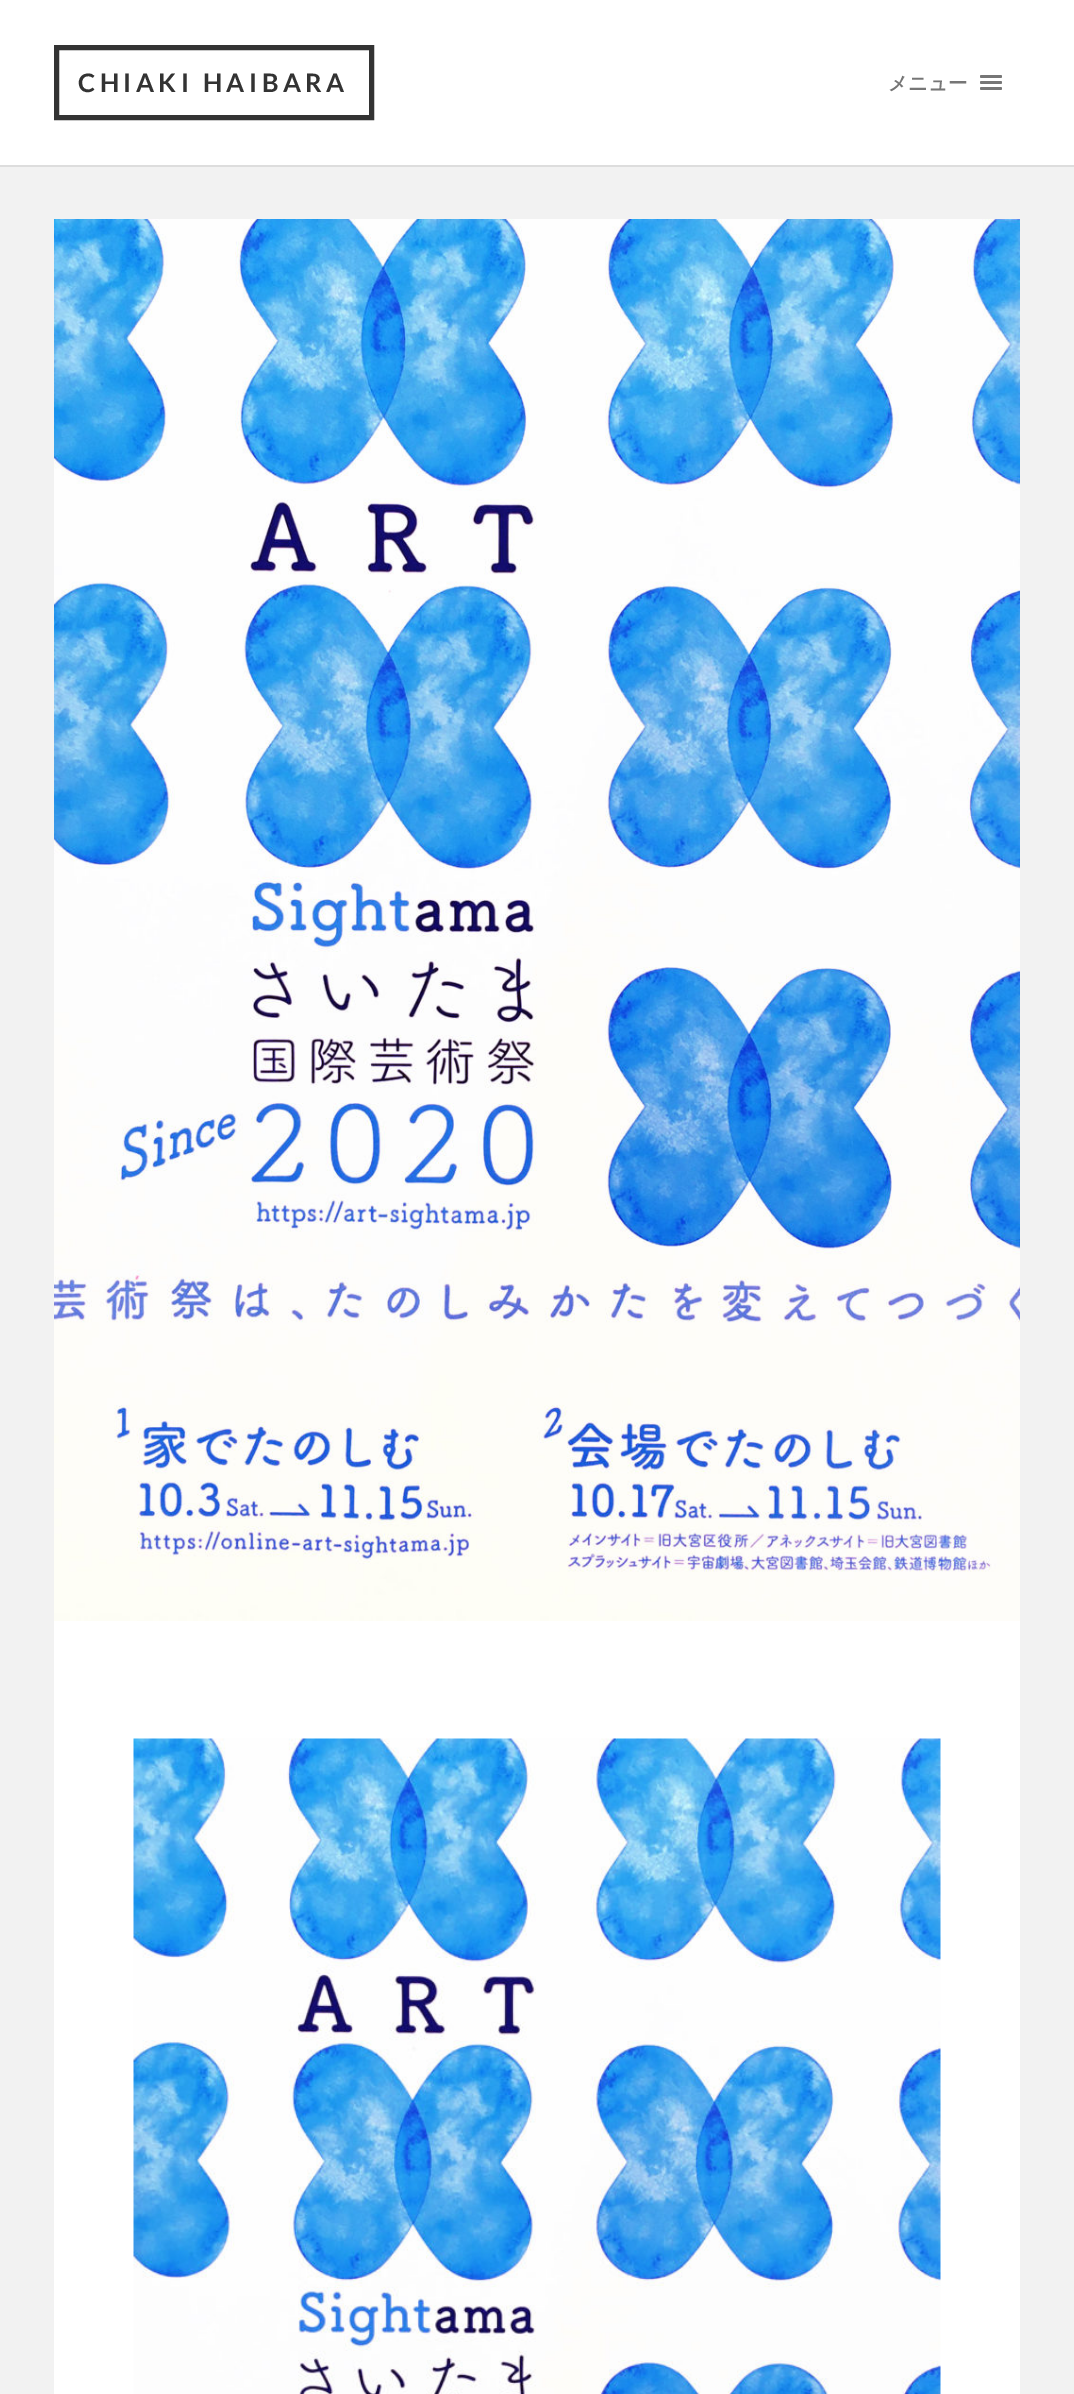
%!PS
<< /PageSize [1074 2394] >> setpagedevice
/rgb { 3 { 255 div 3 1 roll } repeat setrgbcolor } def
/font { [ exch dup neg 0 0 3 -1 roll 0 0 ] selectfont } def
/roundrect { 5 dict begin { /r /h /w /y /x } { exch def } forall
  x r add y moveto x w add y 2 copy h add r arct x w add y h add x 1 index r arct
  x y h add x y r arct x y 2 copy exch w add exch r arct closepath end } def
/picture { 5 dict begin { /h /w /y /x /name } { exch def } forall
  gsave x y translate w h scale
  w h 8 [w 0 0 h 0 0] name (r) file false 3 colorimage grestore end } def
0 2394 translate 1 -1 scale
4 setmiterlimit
242 242 242 rgb
0 0 1074 2394 rectfill
255 255 255 rgb
0 0 1074 165 rectfill
221 221 221 rgb
0 165 1074 2 rectfill
51 51 51 rgb
5 setlinewidth
56.5 47.5 315 70 rectstroke
118 118 118 rgb
980 75 22 3 1.5 roundrect fill
980 81 22 3 1.5 roundrect fill
980 87 22 3 1.5 roundrect fill
255 255 255 rgb
54 1621 966 773 rectfill
(img/1.rgb) 54 219 966 1402 picture
(img/2.rgb) 133 1738 808 656 picture
/Lato-Bold 25.5 font
51 51 51 rgb
78 92 moveto 4.5 0 (CHIAKI HAIBARA) ashow
/WenQuanYiZenHei-Bold 19.5 font
118 118 118 rgb
888 90 moveto (メニュー) show
showpage
